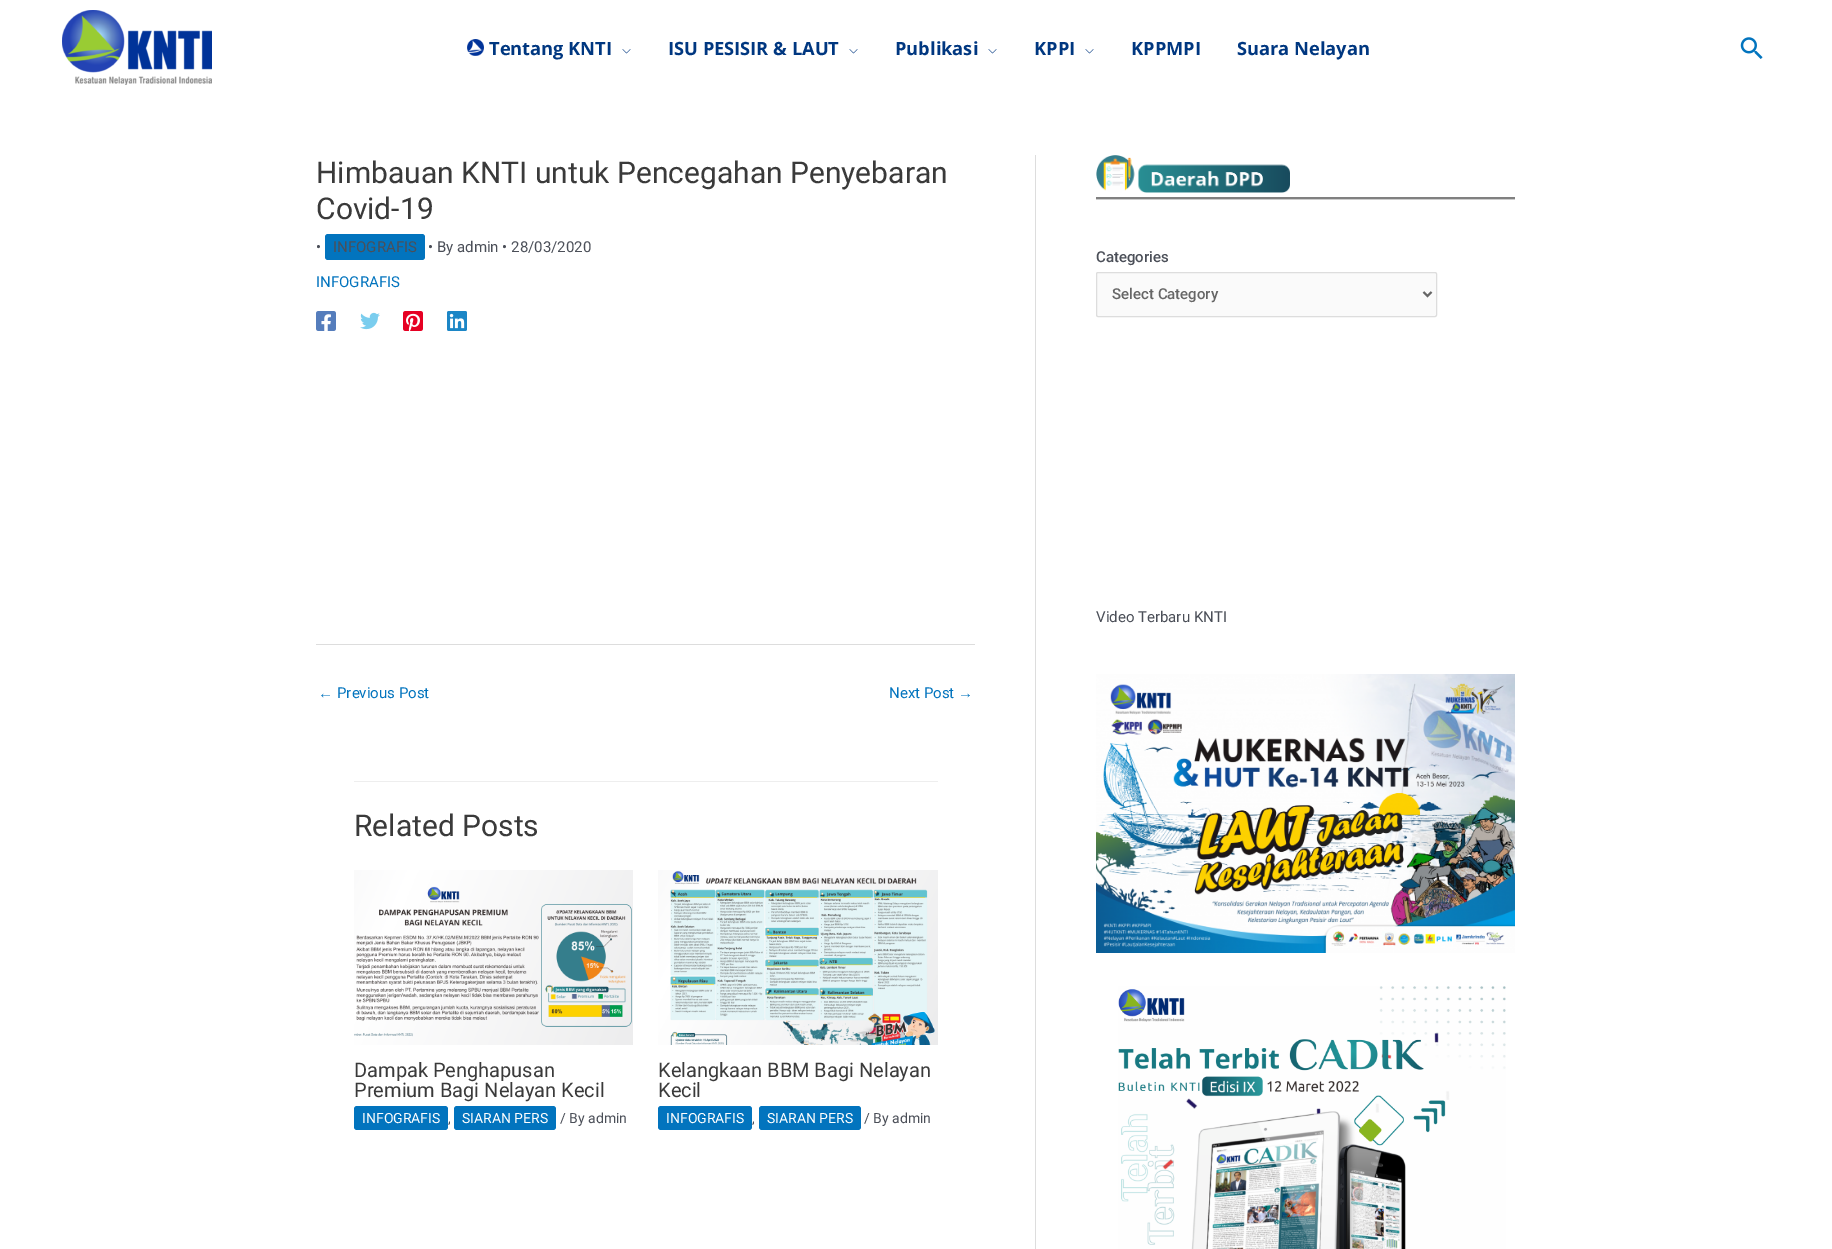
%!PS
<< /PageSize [1832 1249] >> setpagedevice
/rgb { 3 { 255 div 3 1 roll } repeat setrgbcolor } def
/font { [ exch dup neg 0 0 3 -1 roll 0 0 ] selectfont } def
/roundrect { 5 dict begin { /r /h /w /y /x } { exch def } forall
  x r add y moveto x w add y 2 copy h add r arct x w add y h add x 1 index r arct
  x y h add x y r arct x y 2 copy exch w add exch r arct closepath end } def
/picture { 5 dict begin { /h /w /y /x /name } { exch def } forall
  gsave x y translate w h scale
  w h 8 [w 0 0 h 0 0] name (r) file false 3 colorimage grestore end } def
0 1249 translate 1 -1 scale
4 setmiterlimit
255 255 255 rgb
0 0 1832 1249 rectfill
(img/1.rgb) 62 10 150 75 picture
(img/2.rgb) 467 39 17 17 picture
(img/3.rgb) 622 49 9 5 picture
(img/3.rgb) 849 49 9 5 picture
(img/3.rgb) 988 49 9 5 picture
(img/3.rgb) 1085 49 9 5 picture
(img/4.rgb) 1740 37 23 22 picture
2 116 190 rgb
325 234 100 26 3 roundrect fill
(img/5.rgb) 316 311 20 20 picture
(img/6.rgb) 360 312 20 18 picture
(img/7.rgb) 403 311 20 20 picture
(img/8.rgb) 447 311 20 20 picture
221 221 221 rgb
316 644 659 1 rectfill
238 238 238 rgb
354 781 584 1 rectfill
(img/9.rgb) 354 870 279 175 picture
2 116 190 rgb
354 1106 94 24 3 roundrect fill
454 1106 102 24 3 roundrect fill
(img/10.rgb) 658 870 280 175 picture
658 1106 94 24 3 roundrect fill
759 1106 102 24 3 roundrect fill
221 221 221 rgb
1035 155 1 1094 rectfill
(img/11.rgb) 1096 155 194 38 picture
204 204 204 rgb
1096 199 419 1 rectfill
128 128 128 rgb
1096 197 419 2 rectfill
250 250 250 rgb
1096.5 272.5 340 44 1.5 roundrect gsave fill grestore
221 221 221 rgb
stroke
102 102 102 rgb
2 setlinewidth
1423.5 292 moveto 1427.5 296 lineto 1431.5 292 lineto stroke
(img/12.rgb) 1096 674 419 279 picture
(img/13.rgb) 1118 986 388 263 picture
/OpenSans-Bold 18.25 font
0 55 128 rgb
[
  [(Tentang KNTI) 489 55]
  [(ISU PESISIR & LAUT) 668 55]
  [(Publikasi) 895 55]
  [(KPPI) 1034 55]
  [(KPPMPI) 1131 55]
  [(Suara Nelayan) 1237 55]
] { aload pop moveto show } forall
/Roboto-Regular 30 font
58 58 58 rgb
316 183 moveto (Himbauan KNTI untuk Pencegahan Penyebaran) show
316 219 moveto (Covid-19) show
/Roboto-Regular 15 font
75 79 88 rgb
[
  [(•) 316 252]
  [(INFOGRAFIS) 333 252]
  [(• By admin • 28/03/2020) 428 252]
] { aload pop moveto show } forall
2 116 190 rgb
316 287 moveto (INFOGRAFIS) show
/LiberationSans-Regular 15 font
318 698 moveto (←) show
/Roboto-Regular 15 font
337 698 moveto (Previous Post) show
889 698 moveto (Next Post) show
/LiberationSans-Regular 15 font
958 698 moveto (→) show
/Roboto-Regular 30 font
58 58 58 rgb
354 836 moveto (Related Posts) show
/Roboto-Regular 20 font
354 1077 moveto (Dampak Penghapusan) show
354 1097 moveto (Premium Bagi Nelayan Kecil) show
/Roboto-Regular 14 font
255 255 255 rgb
362 1123 moveto (INFOGRAFIS) show
75 79 88 rgb
448 1123 moveto (,) show
255 255 255 rgb
462 1123 moveto (SIARAN PERS) show
75 79 88 rgb
560 1123 moveto (/ By admin) show
/Roboto-Regular 20 font
58 58 58 rgb
658 1077 moveto (Kelangkaan BBM Bagi Nelayan) show
658 1097 moveto (Kecil) show
/Roboto-Regular 14 font
255 255 255 rgb
666 1123 moveto (INFOGRAFIS) show
75 79 88 rgb
752 1123 moveto (,) show
255 255 255 rgb
767 1123 moveto (SIARAN PERS) show
75 79 88 rgb
864 1123 moveto (/ By admin) show
/Roboto-Medium 15 font
1096 262 moveto (Categories) show
102 102 102 rgb
1112 299 moveto (Select Category) show
/Roboto-Regular 15 font
75 79 88 rgb
1096 622 moveto (Video Terbaru KNTI) show
showpage
